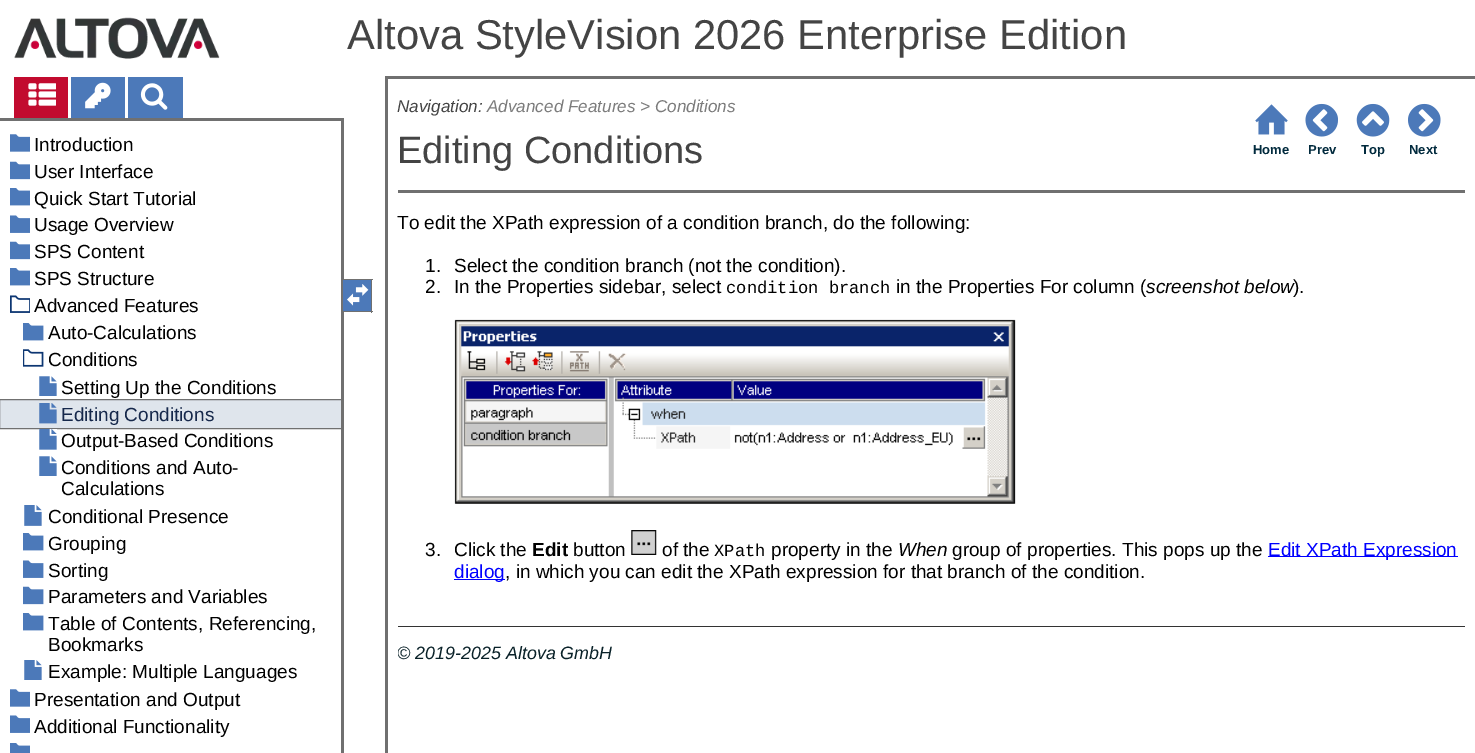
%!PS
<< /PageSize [1475 753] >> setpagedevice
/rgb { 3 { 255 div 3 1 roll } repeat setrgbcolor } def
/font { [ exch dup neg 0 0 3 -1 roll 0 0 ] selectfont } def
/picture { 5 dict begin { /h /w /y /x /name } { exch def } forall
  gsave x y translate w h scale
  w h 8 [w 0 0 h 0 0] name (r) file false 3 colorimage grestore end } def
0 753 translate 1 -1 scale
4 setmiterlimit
255 255 255 rgb
0 0 1475 753 rectfill
(img/1.rgb) 14 17 206 42 picture
[
  [14 77 54 41 194 11 47]
  [71 77 54 41 76 121 185]
  [128 77 55 41 76 121 185]
] { aload pop rgb rectfill } forall
(img/2.rgb) 28 83 28 23 picture
(img/3.rgb) 85 82 26 27 picture
(img/4.rgb) 140 83 28 27 picture
112 112 112 rgb
0 118 344 3 rectfill
341 118 3 635 rectfill
(img/5.rgb) 10 134 20 18 picture
(img/6.rgb) 10 161 20 19 picture
(img/7.rgb) 10 188 20 18 picture
(img/8.rgb) 10 215 20 18 picture
(img/6.rgb) 10 241 20 19 picture
(img/7.rgb) 10 268 20 18 picture
(img/9.rgb) 10 295 20 18 picture
(img/10.rgb) 23 323 21 18 picture
(img/11.rgb) 23 349 21 18 picture
(img/12.rgb) 39 376 18 20 picture
223 229 236 rgb
0 400 341 28 rectfill
(img/13.rgb) 39 403 18 21 picture
gsave
0 373 341 130 rectclip
112 112 112 rgb
-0.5 399.5 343 29 rectstroke
grestore
(img/14.rgb) 39 429 18 21 picture
(img/12.rgb) 39 456 18 20 picture
(img/15.rgb) 24 505 18 21 picture
(img/10.rgb) 23 533 21 18 picture
(img/16.rgb) 23 560 21 18 picture
(img/17.rgb) 23 586 21 19 picture
(img/10.rgb) 23 613 21 18 picture
(img/18.rgb) 24 660 18 20 picture
(img/5.rgb) 10 689 20 18 picture
(img/8.rgb) 10 715 20 18 picture
(img/19.rgb) 10 743 20 10 picture
[
  [343 280 28 31 76 121 185]
  [343 279 30 1 112 112 112]
  [371 279 1 34 112 112 112]
  [343 311 30 1 112 112 112]
] { aload pop rgb rectfill } forall
(img/20.rgb) 347 284 22 22 picture
385 76 1090 3 rectfill
385 76 3 677 rectfill
(img/21.rgb) 1255 104 33 31 picture
(img/22.rgb) 1305 103 33 34 picture
(img/23.rgb) 1356 103 34 34 picture
(img/24.rgb) 1408 103 33 34 picture
398 190 1067 3 rectfill
(img/25.rgb) 454 319 562 185 picture
(img/26.rgb) 631 530 26 25 picture
[
  [1268 556 190 1 0 0 255]
  [454 579 51 1 0 0 255]
  [398 626 1067 1 51 51 51]
] { aload pop rgb rectfill } forall
/LiberationSans-Regular 41.75 font
68 68 68 rgb
347 49 moveto (Altova StyleVision 2026 Enterprise Edition) show
/LiberationSans-Regular 19 font
0 0 0 rgb
[
  [(Introduction) 34 151]
  [(User Interface) 34 178]
  [(Quick Start Tutorial) 34 205]
  [(Usage Overview) 34 231]
  [(SPS Content) 34 258]
  [(SPS Structure) 34 285]
  [(Advanced Features) 34 312]
  [(Auto-Calculations) 48 339]
  [(Conditions) 48 366]
  [(Setting Up the Conditions) 61 394]
] { aload pop moveto show } forall
22 40 75 rgb
61 421 moveto (Editing Conditions) show
0 0 0 rgb
[
  [(Output-Based Conditions) 61 447]
  [(Conditions and Auto-) 61 474]
  [(Calculations) 61 495]
  [(Conditional Presence) 48 523]
  [(Grouping) 48 550]
  [(Sorting) 48 577]
  [(Parameters and Variables) 48 603]
  [(Table of Contents, Referencing,) 48 630]
  [(Bookmarks) 48 651]
  [(Example: Multiple Languages) 48 678]
  [(Presentation and Output) 34 706]
  [(Additional Functionality) 34 733]
] { aload pop moveto show } forall
/LiberationSans-Italic 17.1 font
68 68 68 rgb
397 112 moveto (Navigation:) show
124 124 124 rgb
487 112 moveto (Advanced Features > Conditions) show
/LiberationSans-Regular 38 font
68 68 68 rgb
397 163 moveto (Editing Conditions) show
/LiberationSans-Bold 13 font
2 43 62 rgb
[
  [(Home) 1253 154]
  [(Prev) 1308 154]
  [(Top) 1361 154]
  [(Next) 1409 154]
] { aload pop moveto show } forall
/LiberationSans-Regular 19 font
0 0 0 rgb
[
  [(To edit the XPath expression of a condition branch, do the following:) 397 229]
  [(1.) 425 272]
  [(Select the condition branch \(not the condition\).) 454 272]
  [(2.) 425 293]
  [(In the Properties sidebar, select) 454 293]
] { aload pop moveto show } forall
/LiberationMono-Regular 17.1 font
726 293 moveto (condition branch) show
/LiberationSans-Regular 19 font
896 293 moveto (in the Properties For column \() show
/LiberationSans-Italic 19 font
1146 293 moveto (screenshot below) show
/LiberationSans-Regular 19 font
[
  [(\).) 1293 293]
  [(3.) 425 556]
  [(Click the) 454 556]
] { aload pop moveto show } forall
/LiberationSans-Bold 19 font
532 556 moveto (Edit) show
/LiberationSans-Regular 19 font
573 556 moveto (button) show
662 556 moveto (of the) show
/LiberationMono-Regular 17.1 font
714 556 moveto (XPath) show
/LiberationSans-Regular 19 font
771 556 moveto (property in the) show
/LiberationSans-Italic 19 font
898 556 moveto (When) show
/LiberationSans-Regular 19 font
952 556 moveto (group of properties. This pops up the) show
0 0 255 rgb
1268 556 moveto (Edit XPath Expression) show
454 578 moveto (dialog) show
0 0 0 rgb
505 578 moveto (, in which you can edit the XPath expression for that branch of the condition.) show
gsave
398 193 1067 492 rectclip
/LiberationSans-Italic 17.9 font
10 34 41 rgb
397 659 moveto (© 2019-2025 Altova GmbH) show
grestore
showpage
